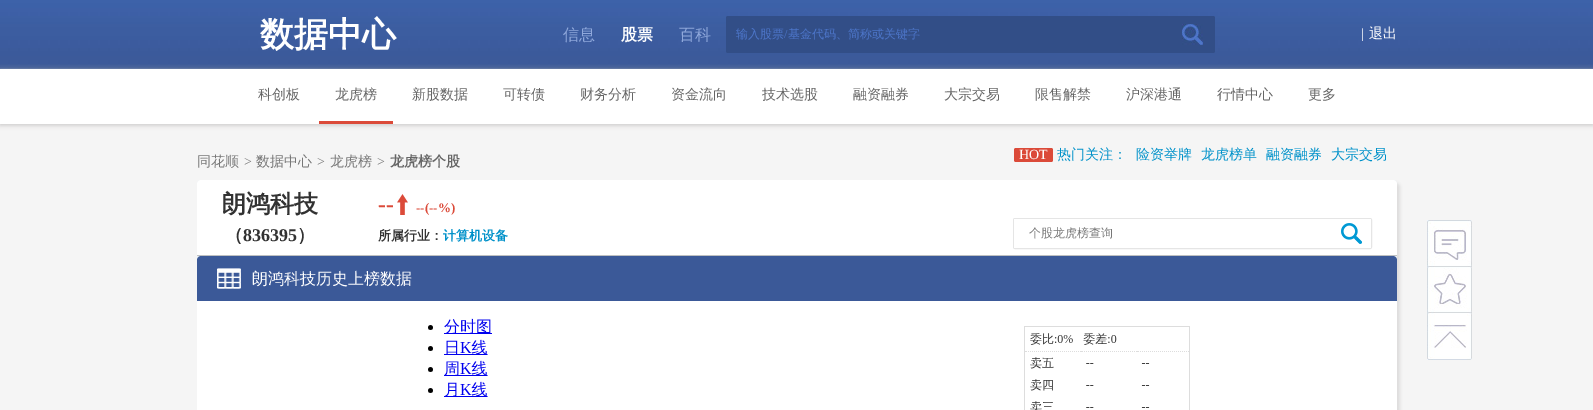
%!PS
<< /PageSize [1593 410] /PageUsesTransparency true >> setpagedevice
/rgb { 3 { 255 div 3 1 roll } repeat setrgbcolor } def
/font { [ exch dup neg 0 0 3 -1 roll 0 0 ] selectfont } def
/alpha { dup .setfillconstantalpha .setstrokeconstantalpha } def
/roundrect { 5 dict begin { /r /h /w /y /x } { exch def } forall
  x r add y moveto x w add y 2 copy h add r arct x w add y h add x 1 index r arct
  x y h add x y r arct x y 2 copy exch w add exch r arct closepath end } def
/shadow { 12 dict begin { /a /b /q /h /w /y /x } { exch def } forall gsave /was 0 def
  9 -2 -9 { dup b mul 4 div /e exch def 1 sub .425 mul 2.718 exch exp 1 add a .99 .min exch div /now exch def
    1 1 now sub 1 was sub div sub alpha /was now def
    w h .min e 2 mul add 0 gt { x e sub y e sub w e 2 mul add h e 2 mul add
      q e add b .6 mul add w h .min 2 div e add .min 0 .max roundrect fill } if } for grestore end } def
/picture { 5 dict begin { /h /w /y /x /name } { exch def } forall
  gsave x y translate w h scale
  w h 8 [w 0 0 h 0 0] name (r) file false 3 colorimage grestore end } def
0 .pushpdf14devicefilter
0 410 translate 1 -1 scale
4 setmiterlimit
245 245 245 rgb
0 0 1593 410 rectfill
(img/1.rgb) 0 0 1593 69 picture
50 78 135 rgb
726 16 489 37 2 roundrect fill
1214 17 1 1 rectfill
(img/2.rgb) 1182 24 21 21 picture
198 197 197 rgb
0 70 1593 55 0 2.5 1 shadow
255 255 255 rgb
0 69 1593 55 rectfill
219 74 57 rgb
319 121 74 3 rectfill
1014 148 39 14 2 roundrect fill
222 221 221 rgb
200 183 1200 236 4 1.5 1 shadow
236 242 246 rgb
197 180 1200 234 4 roundrect fill
255 255 255 rgb
201 180 moveto 1393 180 lineto 1395 180 1397 182 1397 184 curveto 1397 256 lineto 197 256 lineto 197 184 lineto 197 182 199 180 201 180 curveto closepath fill
190 192 193 rgb
197 255 1200 1 rectfill
(img/3.rgb) 397 194 11 21 picture
229 229 229 rgb
1013.5 218.5 358 30 1.5 roundrect stroke
255 255 255 rgb
1014 219 357 29 rectfill
(img/4.rgb) 1341 223 21 21 picture
59 89 152 rgb
201 256 moveto 1393 256 lineto 1395 256 1397 258 1397 260 curveto 1397 301 lineto 197 301 lineto 197 260 lineto 197 258 199 256 201 256 curveto closepath fill
(img/5.rgb) 217 268 24 21 picture
255 255 255 rgb
197 301 1200 109 rectfill
(img/6.rgb) 428 318 64 79 picture
(img/7.rgb) 1024 326 166 84 picture
(img/8.rgb) 1427 220 45 140 picture
/WenQuanYiZenHei-Bold 34 font
260 46 moveto (数据中心) show
/WenQuanYiZenHei-Medium 16 font
143 168 219 rgb
563 40 moveto (信息) show
/WenQuanYiZenHei-Bold 16 font
255 255 255 rgb
621 40 moveto (股票) show
/WenQuanYiZenHei-Medium 16 font
143 168 219 rgb
679 40 moveto (百科) show
/WenQuanYiZenHei-Medium 12 font
76 117 201 rgb
736 38 moveto (输入股票 基金代码、简称或关键字) show
/LiberationSerif-Regular 12 font
784 38 moveto (/) show
/LiberationSerif-Regular 14 font
255 255 255 rgb
1361 38 moveto (|) show
/WenQuanYiZenHei-Medium 14 font
1369 38 moveto (退出) show
102 102 102 rgb
[
  [(科创板) 258 99]
  [(龙虎榜) 335 99]
  [(新股数据) 412 99]
  [(可转债) 503 99]
  [(财务分析) 580 99]
  [(资金流向) 671 99]
  [(技术选股) 762 99]
  [(融资融券) 853 99]
  [(大宗交易) 944 99]
  [(限售解禁) 1035 99]
  [(沪深港通) 1126 99]
  [(行情中心) 1217 99]
  [(更多) 1308 99]
] { aload pop moveto show } forall
119 119 119 rgb
197 166 moveto (同花顺) show
/LiberationSerif-Regular 14 font
244 166 moveto (>) show
/WenQuanYiZenHei-Medium 14 font
256 166 moveto (数据中心) show
/LiberationSerif-Regular 14 font
317 166 moveto (>) show
/WenQuanYiZenHei-Medium 14 font
330 166 moveto (龙虎榜) show
/LiberationSerif-Regular 14 font
377 166 moveto (>) show
/WenQuanYiZenHei-Bold 14 font
102 102 102 rgb
390 166 moveto (龙虎榜个股) show
/LiberationSerif-Regular 14 font
255 255 255 rgb
1019 159 moveto (HOT) show
/WenQuanYiZenHei-Medium 14 font
0 145 201 rgb
[
  [(热门关注：) 1057 159]
  [(险资举牌) 1136 159]
  [(龙虎榜单) 1201 159]
  [(融资融券) 1266 159]
  [(大宗交易) 1331 159]
] { aload pop moveto show } forall
/WenQuanYiZenHei-Bold 24 font
50 50 50 rgb
222 212 moveto (朗鸿科技) show
/WenQuanYiZenHei-Bold 18 font
225 241 moveto (（) show
/LiberationSerif-Bold 18 font
243 241 moveto (836395) show
/WenQuanYiZenHei-Bold 18 font
297 241 moveto (）) show
/LiberationSerif-Bold 24 font
219 74 57 rgb
378 212 moveto (--) show
/LiberationSerif-Bold 13 font
416 212 moveto (--\(--%\)) show
/WenQuanYiZenHei-Bold 13 font
50 50 50 rgb
378 240 moveto (所属行业：) show
0 145 201 rgb
443 240 moveto (计算机设备) show
/WenQuanYiZenHei-Medium 12 font
119 119 119 rgb
1029 237 moveto (个股龙虎榜查询) show
/WenQuanYiZenHei-Medium 16 font
255 255 255 rgb
252 284 moveto (朗鸿科技历史上榜数据) show
.poppdf14devicefilter showpage
